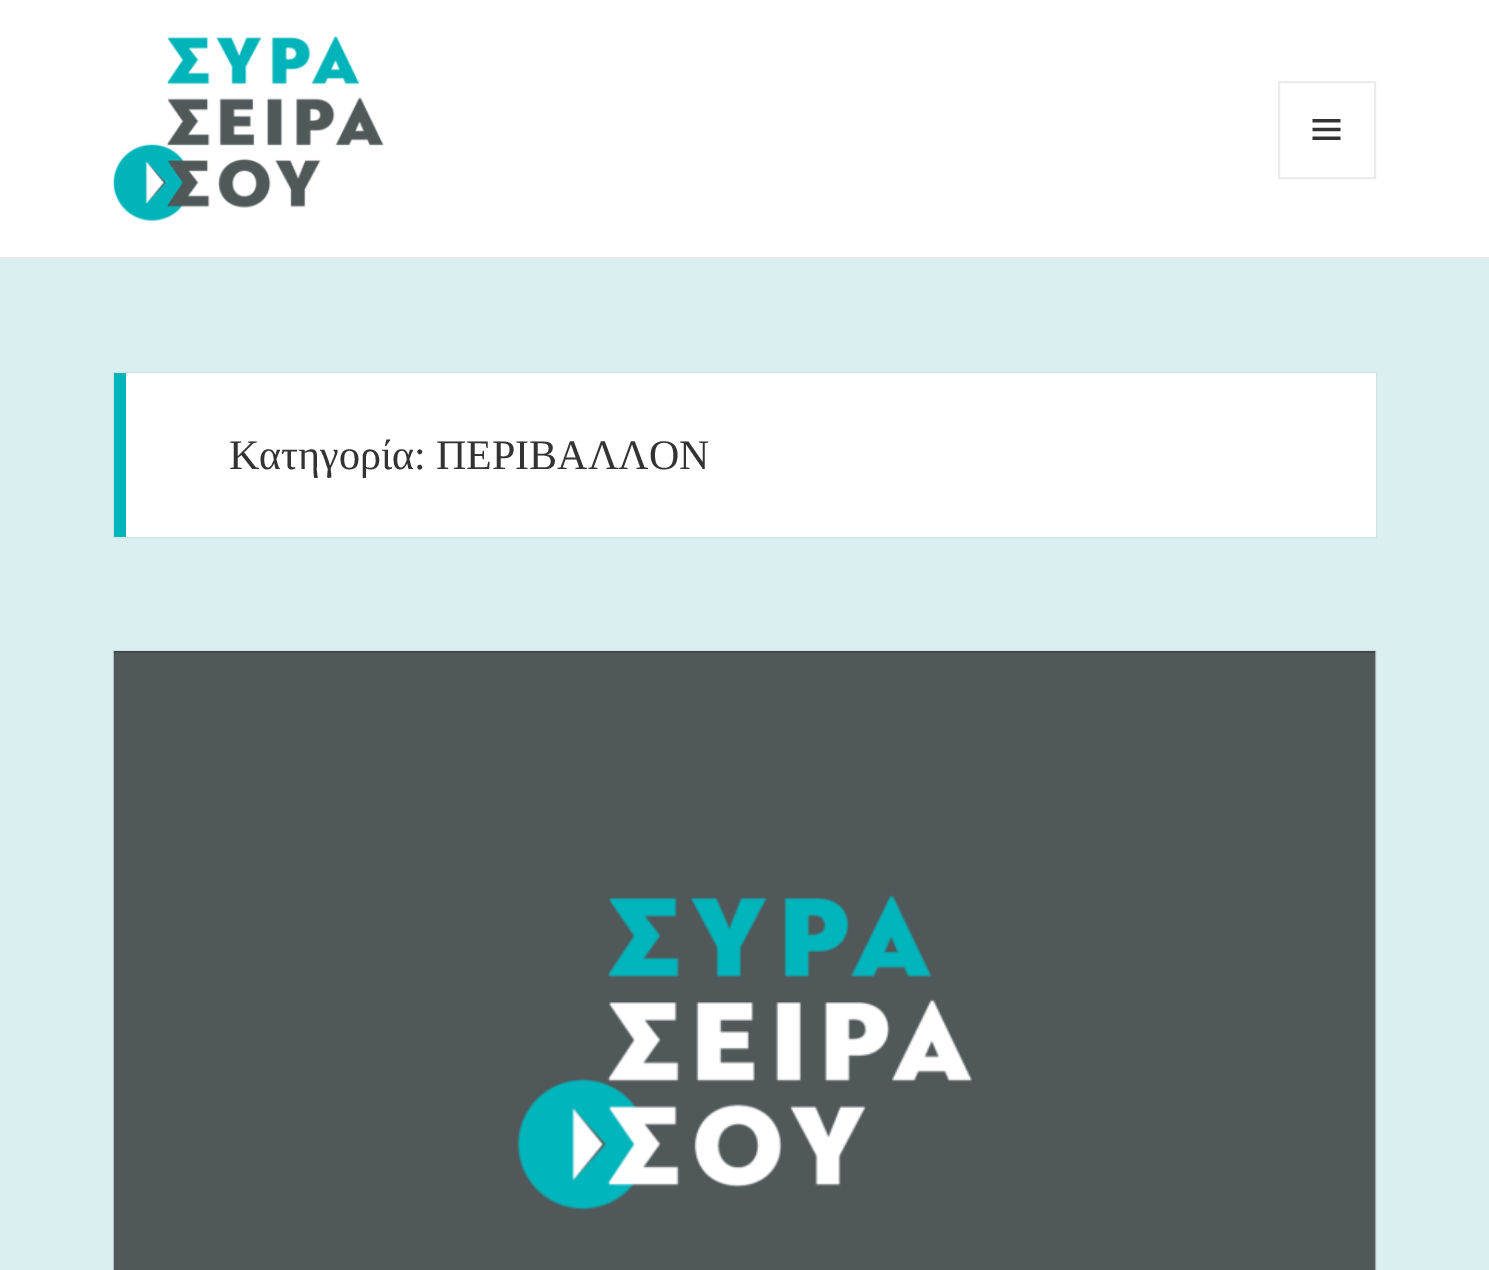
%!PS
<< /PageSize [1489 1270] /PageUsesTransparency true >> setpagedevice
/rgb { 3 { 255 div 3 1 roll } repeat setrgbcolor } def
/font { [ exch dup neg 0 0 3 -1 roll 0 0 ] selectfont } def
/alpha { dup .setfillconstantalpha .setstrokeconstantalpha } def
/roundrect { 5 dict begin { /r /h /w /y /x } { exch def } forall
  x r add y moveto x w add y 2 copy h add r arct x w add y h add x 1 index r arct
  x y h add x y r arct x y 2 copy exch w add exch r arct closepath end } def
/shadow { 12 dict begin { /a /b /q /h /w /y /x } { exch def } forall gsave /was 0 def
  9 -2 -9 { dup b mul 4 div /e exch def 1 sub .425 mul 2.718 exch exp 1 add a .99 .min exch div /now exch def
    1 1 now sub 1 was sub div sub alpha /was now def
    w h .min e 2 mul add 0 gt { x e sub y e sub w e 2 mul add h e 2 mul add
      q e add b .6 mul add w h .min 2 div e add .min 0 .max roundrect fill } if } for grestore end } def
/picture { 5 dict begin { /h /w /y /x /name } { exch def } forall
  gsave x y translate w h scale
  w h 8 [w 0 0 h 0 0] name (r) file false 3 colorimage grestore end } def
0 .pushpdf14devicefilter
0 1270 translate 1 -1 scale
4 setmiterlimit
218 239 239 rgb
0 0 1489 1270 rectfill
255 255 255 rgb
0 0 1489 257 rectfill
235 235 235 rgb
0 257 1489 2 rectfill
(img/1.rgb) 113 36 271 185 picture
2 setlinewidth
1279 82 96 96 rectstroke
(img/2.rgb) 1312 119 29 21 picture
0 0 0 rgb
114 373 1262 164 0 1 0.15 shadow
255 255 255 rgb
126 373 1250 164 rectfill
0 180 186 rgb
114 373 12 164 rectfill
0 0 0 rgb
114 651 1262 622 0 1 0.15 shadow
255 255 255 rgb
1375 651 1 619 rectfill
(img/3.rgb) 113 651 1263 619 picture
/LiberationSerif-Regular 42 font
51 51 51 rgb
229 469 moveto (Κατηγορία: ΠΕΡΙΒΑΛΛΟΝ) show
.poppdf14devicefilter showpage
